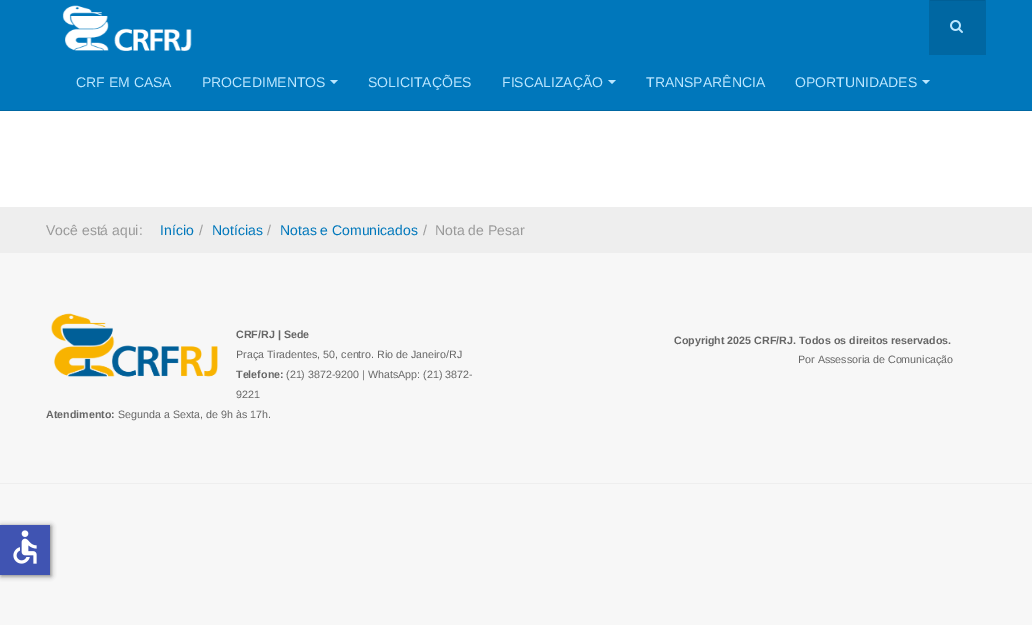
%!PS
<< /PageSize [1032 625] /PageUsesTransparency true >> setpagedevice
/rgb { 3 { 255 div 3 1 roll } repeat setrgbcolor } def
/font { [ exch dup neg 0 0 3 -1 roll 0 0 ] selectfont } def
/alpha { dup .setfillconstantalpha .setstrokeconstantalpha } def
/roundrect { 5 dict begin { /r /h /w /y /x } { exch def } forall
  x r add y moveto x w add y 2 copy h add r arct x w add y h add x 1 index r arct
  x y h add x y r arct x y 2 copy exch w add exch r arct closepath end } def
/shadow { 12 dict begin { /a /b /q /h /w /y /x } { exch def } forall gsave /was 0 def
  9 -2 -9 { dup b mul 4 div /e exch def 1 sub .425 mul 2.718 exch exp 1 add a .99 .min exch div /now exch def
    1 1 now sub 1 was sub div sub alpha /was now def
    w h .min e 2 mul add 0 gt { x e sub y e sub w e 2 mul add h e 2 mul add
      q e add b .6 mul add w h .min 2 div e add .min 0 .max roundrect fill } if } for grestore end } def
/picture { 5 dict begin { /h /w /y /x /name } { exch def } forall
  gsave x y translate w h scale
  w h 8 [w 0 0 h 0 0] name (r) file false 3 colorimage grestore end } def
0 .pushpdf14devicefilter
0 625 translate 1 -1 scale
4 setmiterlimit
255 255 255 rgb
0 0 1032 625 rectfill
0 119 187 rgb
0 0 1032 110 rectfill
0 103 162 rgb
0 110 1032 1 rectfill
(img/1.rgb) 62 5 130 46 picture
929 0 57 55 rectfill
0 95 150 rgb
930 0 55 1 rectfill
(img/2.rgb) 950 20 13 13 picture
187 230 255 rgb
330 80 moveto 338 80 lineto 334 84 lineto closepath fill
608 80 moveto 616 80 lineto 612 84 lineto closepath fill
922 80 moveto 930 80 lineto 926 84 lineto closepath fill
238 238 238 rgb
0 207 1032 46 rectfill
247 247 247 rgb
0 253 1032 372 rectfill
(img/3.rgb) 51 313 167 64 picture
238 238 238 rgb
0 483 1032 1 rectfill
0 0 0 rgb
1 526 50 50 0 2.5 0.5 shadow
64 84 178 rgb
0 525 50 50 rectfill
(img/4.rgb) 13 530 24 34 picture
/LiberationSans-Regular 14 font
187 230 255 rgb
[
  [(CRF EM CASA) 76 87]
  [(PROCEDIMENTOS) 202 87]
  [(SOLICITAÇÕES) 368 87]
  [(FISCALIZAÇÃO) 502 87]
  [(TRANSPARÊNCIA) 646 87]
  [(OPORTUNIDADES) 795 87]
] { aload pop moveto show } forall
153 153 153 rgb
46 235 moveto (Você está aqui:) show
0 119 187 rgb
160 235 moveto (Início) show
153 153 153 rgb
199 235 moveto (/) show
0 119 187 rgb
212 235 moveto (Notícias) show
153 153 153 rgb
267 235 moveto (/) show
0 119 187 rgb
280 235 moveto (Notas e Comunicados) show
153 153 153 rgb
423 235 moveto (/) show
435 235 moveto (Nota de Pesar) show
/LiberationSans-Bold 10.7 font
102 102 102 rgb
236 338 moveto (CRF/RJ | Sede) show
/LiberationSans-Regular 10.7 font
236 358 moveto (Praça Tiradentes, 50, centro. Rio de Janeiro/RJ) show
/LiberationSans-Bold 10.7 font
236 378 moveto (Telefone:) show
/LiberationSans-Regular 10.7 font
286 378 moveto (\(21\) 3872-9200 | WhatsApp: \(21\) 3872-) show
236 398 moveto (9221) show
/LiberationSans-Bold 10.7 font
46 418 moveto (Atendimento:) show
/LiberationSans-Regular 10.7 font
118 418 moveto (Segunda a Sexta, de 9h às 17h.) show
/LiberationSans-Bold 10.7 font
674 344 moveto (Copyright 2025 CRF/RJ. Todos os direitos reservados.) show
/LiberationSans-Regular 10.7 font
798 363 moveto (Por Assessoria de Comunicação) show
.poppdf14devicefilter showpage
